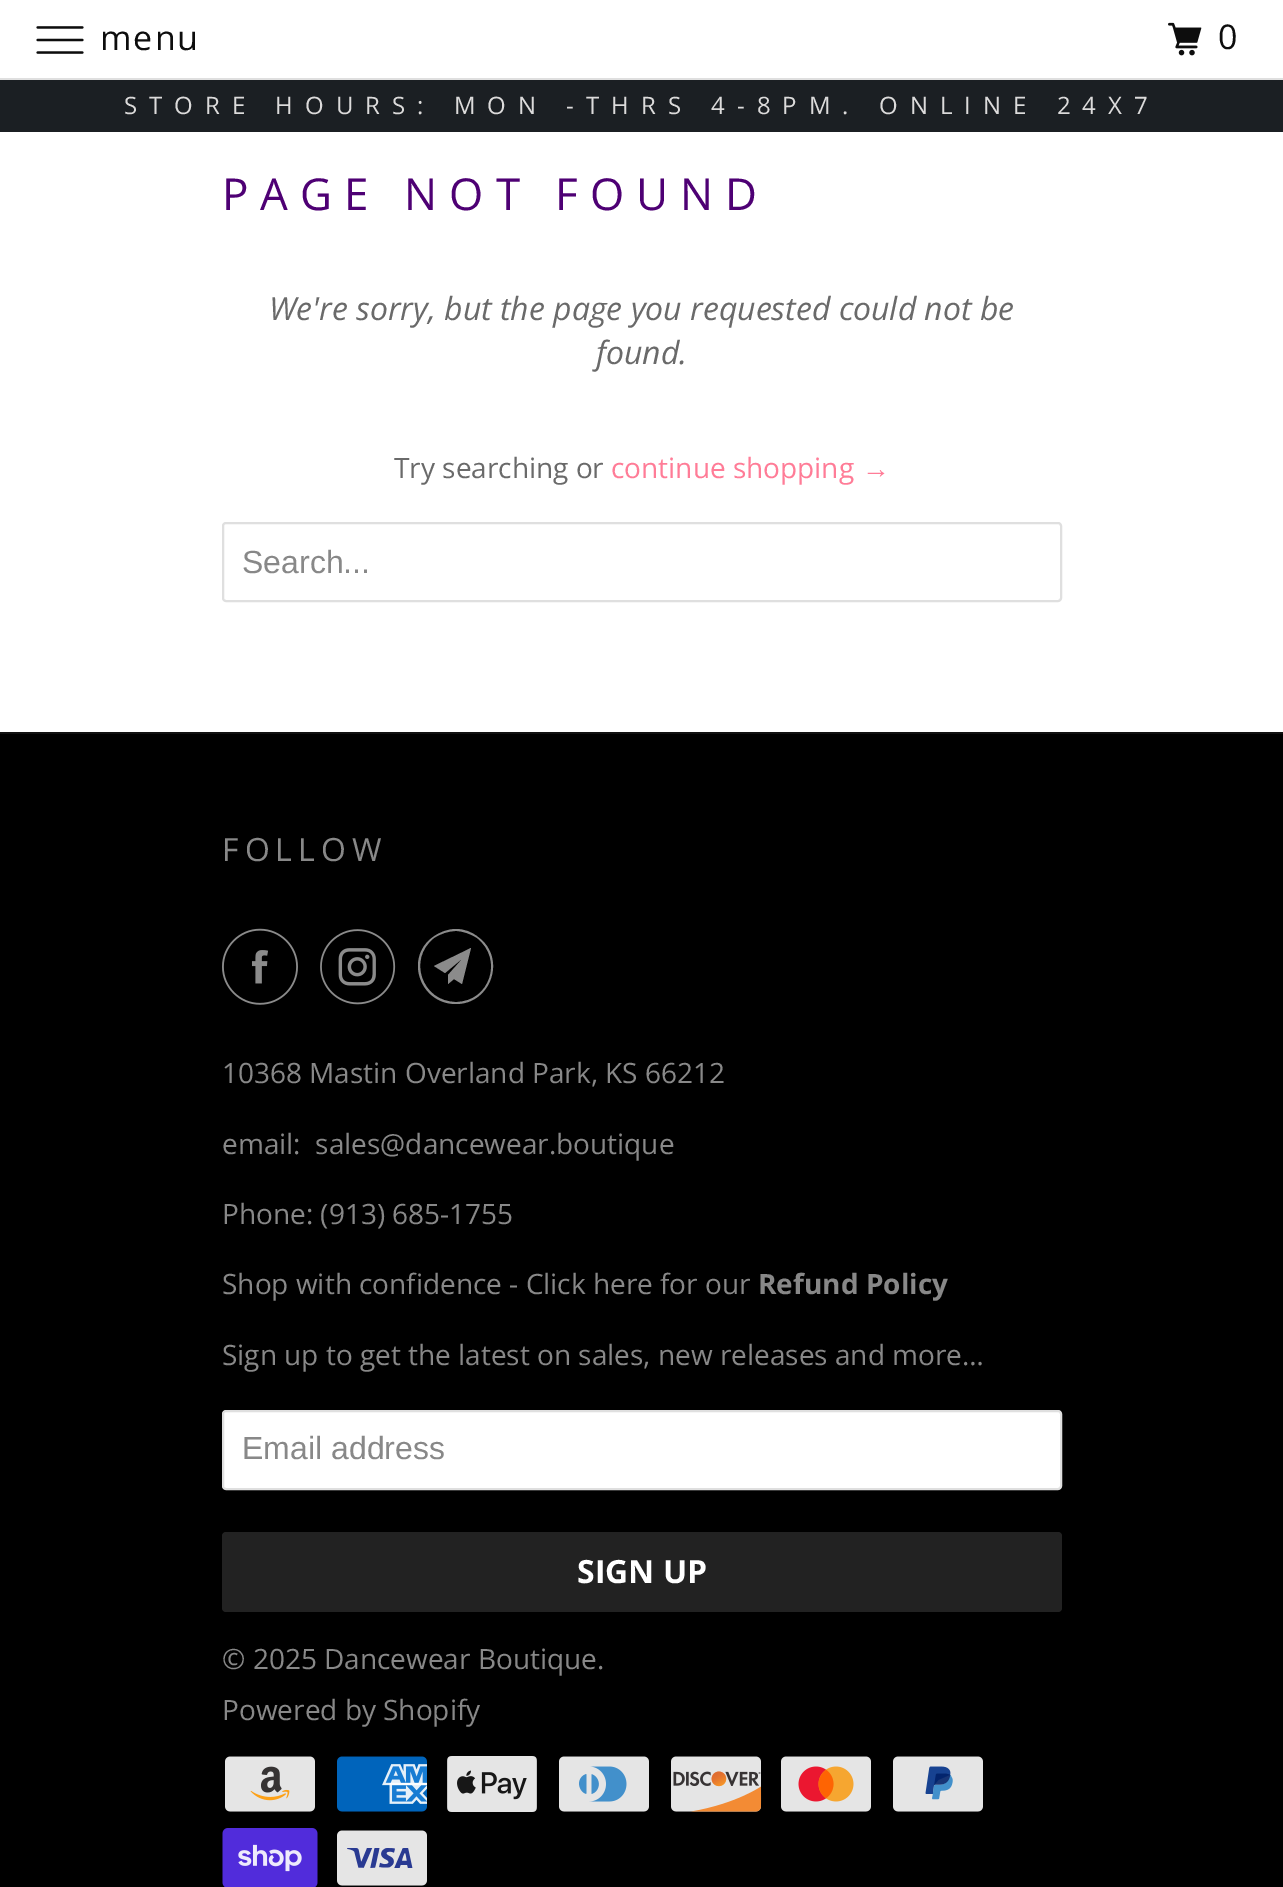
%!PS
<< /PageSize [1283 1887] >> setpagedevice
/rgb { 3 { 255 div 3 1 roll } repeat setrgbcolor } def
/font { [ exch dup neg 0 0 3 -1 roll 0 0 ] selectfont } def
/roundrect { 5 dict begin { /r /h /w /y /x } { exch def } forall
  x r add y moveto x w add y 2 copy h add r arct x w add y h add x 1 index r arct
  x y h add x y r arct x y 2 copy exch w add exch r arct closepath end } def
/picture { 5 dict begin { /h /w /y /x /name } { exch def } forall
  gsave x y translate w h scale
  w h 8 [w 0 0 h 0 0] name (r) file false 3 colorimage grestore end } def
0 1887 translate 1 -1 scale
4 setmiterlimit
255 255 255 rgb
0 0 1283 1887 rectfill
223 223 223 rgb
0 78 1283 2 rectfill
(img/1.rgb) 36 26 48 28 picture
(img/2.rgb) 1168 22 34 34 picture
27 31 35 rgb
0 80 1283 52 rectfill
223 223 223 rgb
2 setlinewidth
223 523 838 78 3 roundrect stroke
0 0 0 rgb
0 734 1283 1153 rectfill
17 17 17 rgb
0 732 1283 2 rectfill
(img/3.rgb) 222 928 76 77 picture
(img/4.rgb) 320 929 76 76 picture
139 139 139 rgb
462 984 moveto 454 979 lineto 448 984 lineto 448 975 lineto 463 958 lineto 445 973 lineto 434 966 lineto 471 948 lineto closepath 456 931 moveto 448 931 440 934 434 938 curveto 407 959 422 1002 456 1002 curveto 490 1002 504 959 477 938 curveto 471 934 463 931 456 931 curveto closepath 456 1004 moveto 420 1004 404 958 433 937 curveto 440 932 448 929 456 929 curveto 464 929 472 932 478 937 curveto 507 958 491 1004 456 1004 curveto closepath fill
255 255 255 rgb
223 1411 838 78 3 roundrect gsave fill grestore
223 223 223 rgb
stroke
34 34 34 rgb
222 1532 840 80 4 roundrect fill
(img/5.rgb) 225 1756 90 56 picture
(img/6.rgb) 337 1756 90 56 picture
(img/7.rgb) 447 1756 90 56 picture
(img/8.rgb) 559 1756 90 56 picture
(img/9.rgb) 671 1756 91 56 picture
(img/10.rgb) 781 1756 90 56 picture
(img/11.rgb) 893 1756 90 56 picture
(img/12.rgb) 222 1828 96 59 picture
(img/13.rgb) 337 1830 90 56 picture
/OpenSans-Regular 34 font
13 13 13 rgb
100 50 moveto 2 0 (menu) ashow
1218 49 moveto 2 0 (0) ashow
/OpenSans-Regular 24 font
220 219 219 rgb
124 114 moveto 12 0 (STORE HOURS: MON -THRS 4-8PM. ONLINE 24X7) ashow
/OpenSans-Regular 44 font
78 0 116 rgb
222 210 moveto 12 0 (PAGE NOT FOUND) ashow
/OpenSans-Italic 32 font
106 106 106 rgb
269 320 moveto (We're sorry, but the page you requested could not be) show
596 364 moveto (found.) show
/OpenSans-Regular 28 font
394 478 moveto (Try searching or) show
255 124 151 rgb
611 478 moveto (continue shopping) show
/LiberationSans-Regular 28 font
862 478 moveto (→) show
/LiberationSans-Regular 32 font
136 136 136 rgb
242 573 moveto (Search...) show
/OpenSans-Regular 32 font
222 861 moveto 6 0 (FOLLOW) ashow
/OpenSans-Regular 28 font
[
  [(10368 Mastin Overland Park, KS 66212) 222 1083]
  [(email:  sales@dancewear.boutique) 222 1154]
  [(Phone: \(913\) 685-1755) 222 1224]
  [(Shop with confidence - Click here for our) 222 1294]
] { aload pop moveto show } forall
/OpenSans-Bold 28 font
758 1294 moveto (Refund Policy) show
/OpenSans-Regular 28 font
222 1365 moveto (Sign up to get the latest on sales, new releases and more…) show
/LiberationSans-Regular 32 font
242 1459 moveto (Email address) show
/OpenSans-Bold 32 font
255 255 255 rgb
577 1583 moveto (SIGN UP) show
/OpenSans-Regular 28 font
136 136 136 rgb
222 1669 moveto (© 2025 Dancewear Boutique.) show
222 1720 moveto (Powered by Shopify) show
showpage
